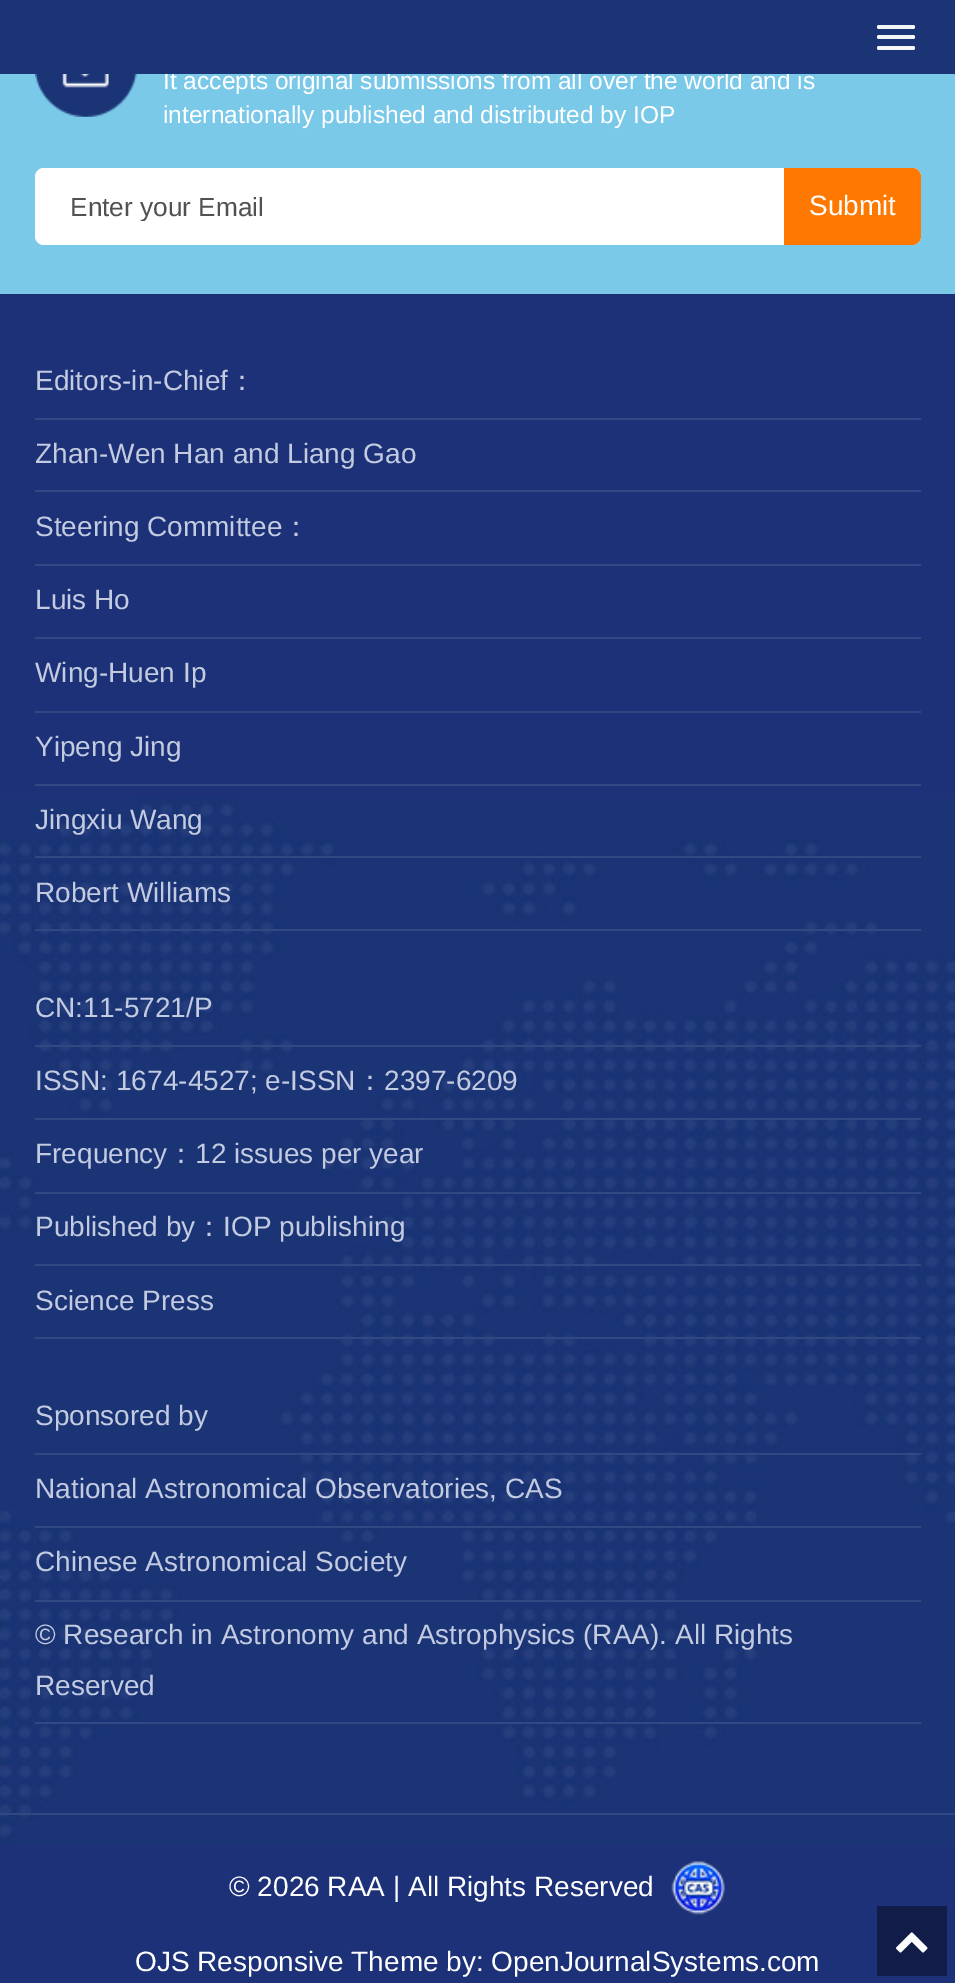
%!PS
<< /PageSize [955 1983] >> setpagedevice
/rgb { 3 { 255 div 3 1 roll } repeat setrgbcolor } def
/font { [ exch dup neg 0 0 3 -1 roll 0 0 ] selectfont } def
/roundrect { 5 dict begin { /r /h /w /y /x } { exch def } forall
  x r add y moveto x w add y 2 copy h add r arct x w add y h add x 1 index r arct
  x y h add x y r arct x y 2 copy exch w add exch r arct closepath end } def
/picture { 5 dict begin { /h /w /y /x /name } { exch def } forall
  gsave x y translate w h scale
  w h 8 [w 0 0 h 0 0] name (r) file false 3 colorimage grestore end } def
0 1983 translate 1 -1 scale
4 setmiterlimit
123 201 233 rgb
0 0 955 1983 rectfill
(img/1.rgb) 35 74 102 43 picture
255 255 255 rgb
35 168 886 77 9 roundrect fill
255 120 0 rgb
784 168 moveto 912 168 lineto 917 168 921 172 921 177 curveto 921 236 lineto 921 241 917 245 912 245 curveto 784 245 lineto closepath fill
29 49 120 rgb
0 294 955 1689 rectfill
(img/2.rgb) 0 798 955 1047 picture
[
  [35 418 886 2 49 73 131]
  [35 490 886 2 49 73 131]
  [35 564 886 2 49 73 131]
  [35 637 886 2 49 73 131]
  [35 711 886 2 49 73 131]
  [35 784 886 2 49 73 131]
  [35 856 886 2 49 73 131]
  [35 929 886 2 49 73 131]
  [35 1045 886 2 49 73 131]
  [35 1118 886 2 49 73 131]
  [35 1192 886 2 49 73 131]
  [35 1264 886 2 49 73 131]
  [35 1337 886 2 49 73 131]
  [35 1453 886 2 49 73 131]
  [35 1526 886 2 49 73 131]
  [35 1600 886 2 49 73 131]
  [35 1722 886 2 49 73 131]
  [0 1813 955 2 49 73 131]
] { aload pop rgb rectfill } forall
(img/3.rgb) 671 1861 54 54 picture
17 29 72 rgb
877 1906 70 70 rectfill
(img/4.rgb) 896 1932 32 21 picture
/LiberationSans-Regular 24.5 font
255 255 255 rgb
163 89 moveto (It accepts original submissions from all over the world and is) show
26 52 117 rgb
0 0 955 74 rectfill
243 246 249 rgb
877 46 38 4 2 roundrect fill
877 35 38 4 2 roundrect fill
877 25 38 4 2 roundrect fill
255 255 255 rgb
163 123 moveto (internationally published and distributed by IOP) show
gsave
70 191 714 30 rectclip
/LiberationSans-Regular 26.25 font
81 81 81 rgb
70 216 moveto (Enter your Email) show
grestore
/LiberationSans-Regular 28 font
809 215 moveto (Submit) show
195 203 224 rgb
35 390 moveto (Editors-in-Chief) show
/WenQuanYiZenHei-Medium 28 font
228 390 moveto (：) show
/LiberationSans-Regular 28 font
35 463 moveto (Zhan-Wen Han and Liang Gao) show
35 536 moveto (Steering Committee) show
/WenQuanYiZenHei-Medium 28 font
282 536 moveto (：) show
/LiberationSans-Regular 28 font
[
  [(Luis Ho) 35 609]
  [(Wing-Huen Ip) 35 682]
  [(Yipeng Jing) 35 756]
  [(Jingxiu Wang) 35 829]
  [(Robert Williams) 35 902]
  [(CN:11-5721/P) 35 1017]
  [(ISSN: 1674-4527; e-ISSN) 35 1090]
] { aload pop moveto show } forall
/WenQuanYiZenHei-Medium 28 font
356 1090 moveto (：) show
/LiberationSans-Regular 28 font
384 1090 moveto (2397-6209) show
35 1163 moveto (Frequency) show
/WenQuanYiZenHei-Medium 28 font
167 1163 moveto (：) show
/LiberationSans-Regular 28 font
195 1163 moveto (12 issues per year) show
35 1236 moveto (Published by) show
/WenQuanYiZenHei-Medium 28 font
195 1236 moveto (：) show
/LiberationSans-Regular 28 font
[
  [(IOP publishing) 223 1236]
  [(Science Press) 35 1310]
  [(Sponsored by) 35 1425]
  [(National Astronomical Observatories, CAS) 35 1498]
  [(Chinese Astronomical Society) 35 1571]
  [(© Research in Astronomy and Astrophysics \(RAA\). All Rights) 35 1644]
  [(Reserved) 35 1695]
] { aload pop moveto show } forall
255 255 255 rgb
229 1896 moveto (© 2026 RAA | All Rights Reserved) show
135 1971 moveto (OJS Responsive Theme by: OpenJournalSystems.com) show
showpage
